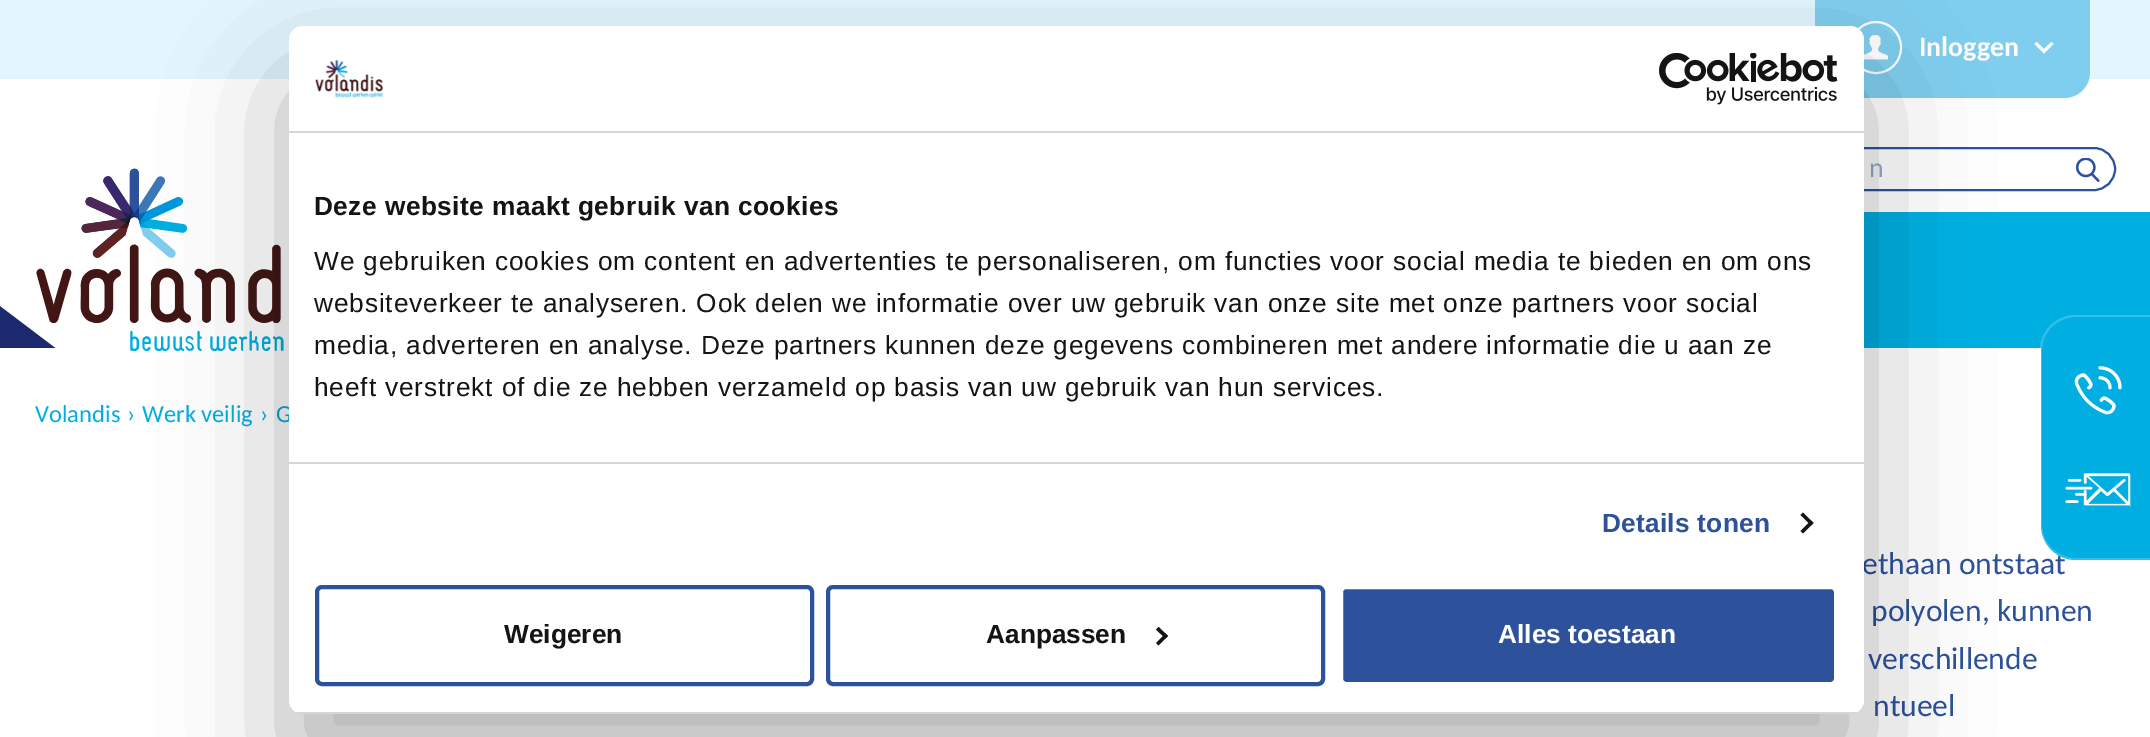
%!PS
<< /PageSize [2150 737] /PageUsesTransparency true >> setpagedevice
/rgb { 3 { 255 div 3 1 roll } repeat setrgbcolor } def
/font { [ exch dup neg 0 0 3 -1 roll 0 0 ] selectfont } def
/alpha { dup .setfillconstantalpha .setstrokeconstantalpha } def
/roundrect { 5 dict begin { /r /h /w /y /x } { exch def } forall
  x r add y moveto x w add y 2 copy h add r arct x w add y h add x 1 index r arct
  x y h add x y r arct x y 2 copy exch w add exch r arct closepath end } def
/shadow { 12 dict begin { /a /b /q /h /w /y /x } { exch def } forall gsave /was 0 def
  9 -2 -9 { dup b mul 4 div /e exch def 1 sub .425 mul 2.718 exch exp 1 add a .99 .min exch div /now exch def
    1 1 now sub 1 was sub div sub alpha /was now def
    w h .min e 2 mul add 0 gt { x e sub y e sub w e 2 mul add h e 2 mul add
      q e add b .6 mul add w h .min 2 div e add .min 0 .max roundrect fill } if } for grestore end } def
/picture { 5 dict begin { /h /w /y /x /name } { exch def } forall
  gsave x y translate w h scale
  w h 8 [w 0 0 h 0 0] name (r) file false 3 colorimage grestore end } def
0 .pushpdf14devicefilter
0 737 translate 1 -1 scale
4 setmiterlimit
255 255 255 rgb
0 0 2150 737 rectfill
226 246 255 rgb
0 0 2150 79 rectfill
127 206 239 rgb
1815 0 moveto 2090 0 lineto 2090 72 lineto 2090 86.5 2078.5 98 2064 98 curveto 1841 98 lineto 1826.5 98 1815 86.5 1815 72 curveto closepath fill
(img/1.rgb) 1864 35 24 25 picture
255 255 255 rgb
2 setlinewidth
1851 22 50 51 25 roundrect stroke
2053.5 44 moveto 2051.5 42 lineto 2044 49 lineto 2036.5 42 lineto 2034.5 44 lineto 2044 53.5 lineto closepath fill
45 82 155 rgb
1784 148 331 42 21 roundrect stroke
(img/2.rgb) 2076 158 24 24 picture
(img/3.rgb) 0 212 2150 136 picture
(img/4.rgb) 36 168 248 184 picture
/Carlito-Bold 28 font
255 255 255 rgb
1919 56 moveto (Inloggen) show
/Carlito-Regular 28 font
150 169 205 rgb
1869 177 moveto (n) show
/Carlito-Regular 24.5 font
1 174 225 rgb
[
  [(Volandis) 35 422]
  [(›) 127 422]
  [(Werk veilig) 142 422]
  [(›) 260 422]
] { aload pop moveto show } forall
gsave
277 401 187 28 rectclip
276 422 moveto (G) show
grestore
/Carlito-Regular 31.5 font
45 82 155 rgb
[
  [(ethaan ontstaat) 1862 574]
  [(polyolen, kunnen) 1871 621]
  [(verschillende) 1868 669]
  [(ntueel) 1873 716]
] { aload pop moveto show } forall
1 174 225 rgb
2076 315 moveto 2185 315 lineto 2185 560 lineto 2076 560 lineto 2056.5 560 2041 544.5 2041 525 curveto 2041 350 lineto 2041 330.5 2056.5 315 2076 315 curveto closepath fill
0.2 alpha
255 255 255 rgb
2076 315 moveto 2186 315 lineto 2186 560 lineto 2076 560 lineto 2056 560 2040 544 2040 525 curveto 2040 350 lineto 2040 331 2056 315 2076 315 curveto closepath 2076 317 moveto 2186 317 lineto 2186 558 lineto 2076 558 lineto 2057 558 2042 543 2042 525 curveto 2042 350 lineto 2042 332 2057 317 2076 317 curveto closepath eofill
1 alpha
(img/5.rgb) 2074 366 48 49 picture
(img/6.rgb) 2065 473 66 34 picture
0 0 0 rgb
289 82 1575 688 14 59.5 0.3 shadow
255 255 255 rgb
289 26 1575 688 14 roundrect fill
214 214 214 rgb
289 131 1575 2 rectfill
(img/7.rgb) 315 59 69 39 picture
(img/8.rgb) 1659 53 179 52 picture
289 462 1575 2 rectfill
/LiberationSans-Bold 26.25 font
20 20 20 rgb
314 215 moveto 0.45 0 (Deze website maakt gebruik van cookies) ashow
/LiberationSans-Regular 26.25 font
314 270 moveto 0.88 0 (We gebruiken cookies om content en advertenties te personaliseren, om functies voor social media te bieden en om ons) ashow
314 312 moveto 0.88 0 (websiteverkeer te analyseren. Ook delen we informatie over uw gebruik van onze site met onze partners voor social) ashow
314 354 moveto 0.88 0 (media, adverteren en analyse. Deze partners kunnen deze gegevens combineren met andere informatie die u aan ze) ashow
314 396 moveto 0.88 0 (heeft verstrekt of die ze hebben verzameld op basis van uw gebruik van hun services.) ashow
/LiberationSans-Bold 26.25 font
45 82 155 rgb
1602 532 moveto 0.25 0 (Details tonen) ashow
20 20 20 rgb
1803 512.5 moveto 1813.5 523 lineto 1811 525.5 lineto 1800.5 515 lineto closepath fill
1811 520.5 moveto 1813.5 523 lineto 1803 533.5 lineto 1800.5 531 lineto closepath fill
gsave
289 26 1575 688 14 roundrect clip newpath
214 214 214 rgb
289 712 1575 2 rectfill
grestore
45 82 155 rgb
4 setlinewidth
317 587 495 97 5 roundrect stroke
20 20 20 rgb
504 643 moveto (Weigeren) show
45 82 155 rgb
828 587 495 97 5 roundrect stroke
20 20 20 rgb
986 643 moveto (Aanpassen) show
1158.5 627 moveto 1168 636 lineto 1165.5 638.5 lineto 1156 629.5 lineto closepath fill
1165.5 633.5 moveto 1168 636 lineto 1158.5 645.5 lineto 1156 643 lineto closepath fill
45 82 155 rgb
1341 587 495 97 5 roundrect gsave fill grestore
255 255 255 rgb
stroke
1498 643 moveto (Alles toestaan) show
.poppdf14devicefilter showpage
